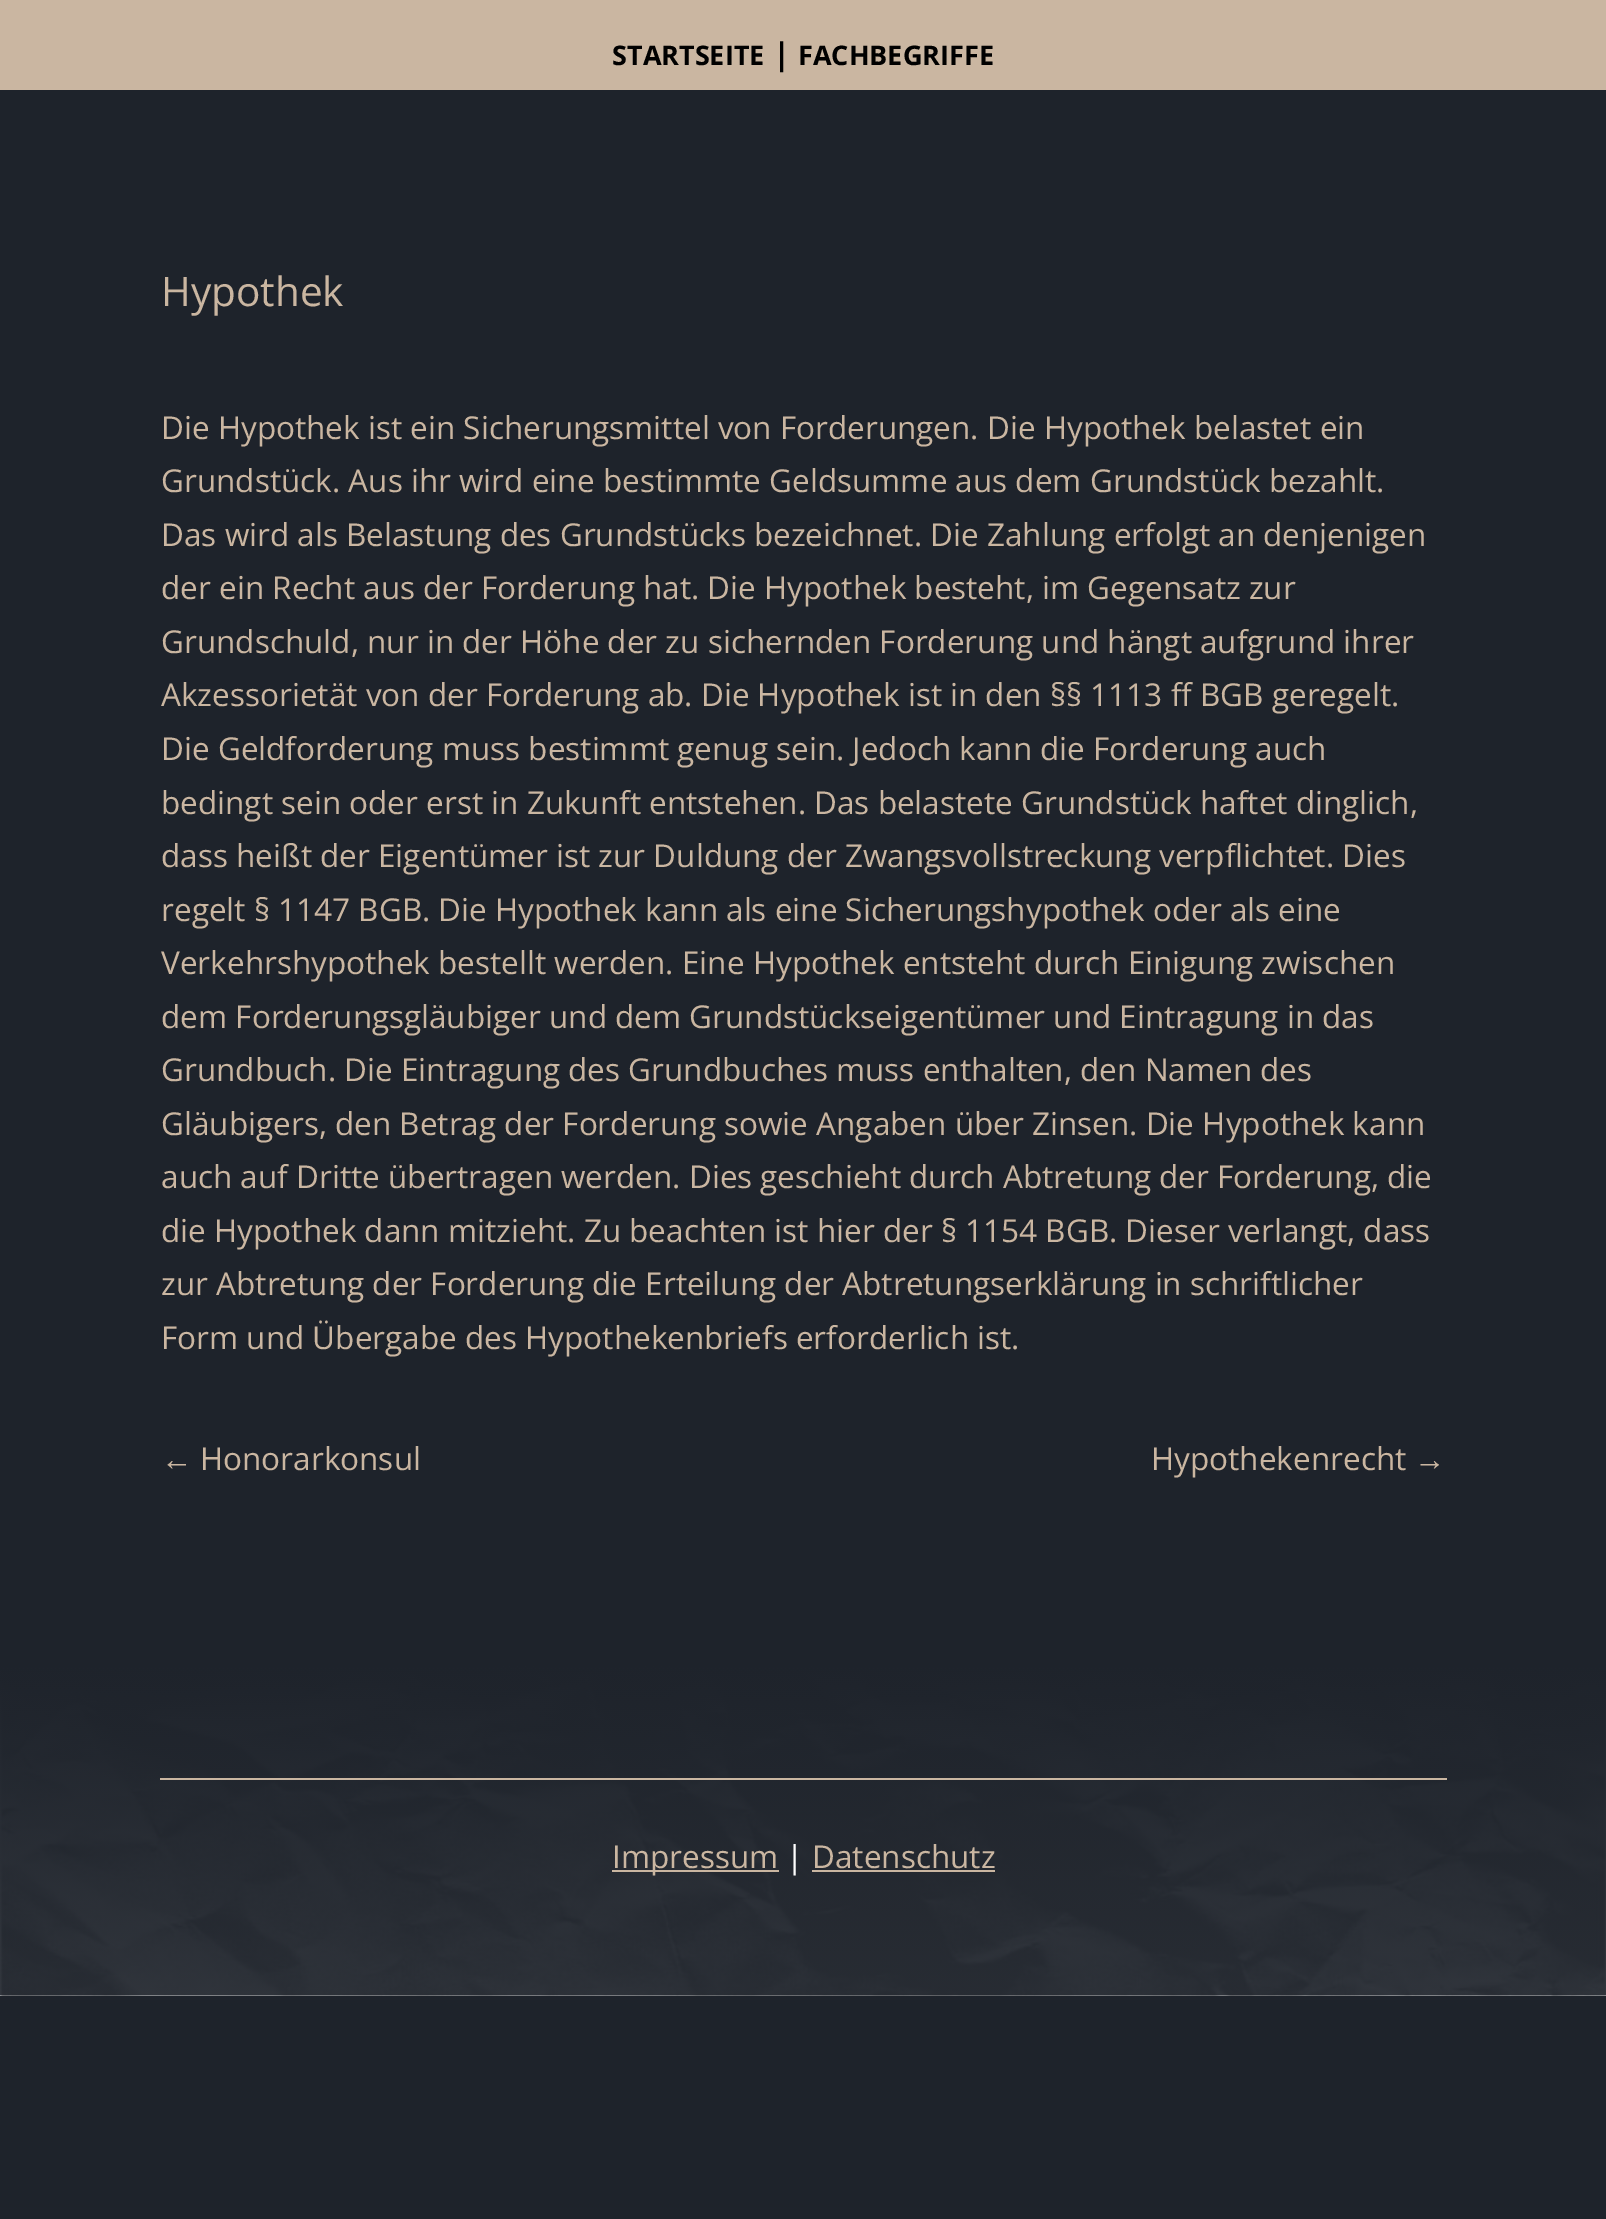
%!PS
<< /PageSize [1606 2219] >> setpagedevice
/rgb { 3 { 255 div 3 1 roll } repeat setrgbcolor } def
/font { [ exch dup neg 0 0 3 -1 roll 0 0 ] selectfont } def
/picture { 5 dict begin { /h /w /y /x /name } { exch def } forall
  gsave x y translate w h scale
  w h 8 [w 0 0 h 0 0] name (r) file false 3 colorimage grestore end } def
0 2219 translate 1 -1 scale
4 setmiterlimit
30 35 43 rgb
0 0 1606 2219 rectfill
202 182 161 rgb
0 0 1606 90 rectfill
(img/1.rgb) 0 1665 1606 331 picture
[
  [160 1778 1287 2 202 182 161]
  [612 1870 167 2 202 182 161]
  [812 1870 183 2 202 182 161]
] { aload pop rgb rectfill } forall
/OpenSans-Bold 27 font
0 0 0 rgb
612 65 moveto (STARTSEITE) show
/OpenSans-Bold 31.5 font
773 65 moveto (|) show
/OpenSans-Bold 27 font
798 65 moveto (FACHBEGRIFFE) show
/OpenSans-Regular 40.5 font
202 182 161 rgb
161 306 moveto (Hypothek) show
/OpenSans-Regular 31.5 font
[
  [(Die Hypothek ist ein Sicherungsmittel von Forderungen. Die Hypothek belastet ein) 161 439]
  [(Grundstück. Aus ihr wird eine bestimmte Geldsumme aus dem Grundstück bezahlt.) 161 492]
  [(Das wird als Belastung des Grundstücks bezeichnet. Die Zahlung erfolgt an denjenigen) 161 546]
  [(der ein Recht aus der Forderung hat. Die Hypothek besteht, im Gegensatz zur) 161 599]
  [(Grundschuld, nur in der Höhe der zu sichernden Forderung und hängt aufgrund ihrer) 161 653]
  [(Akzessorietät von der Forderung ab. Die Hypothek ist in den §§ 1113 ff BGB geregelt.) 161 706]
  [(Die Geldforderung muss bestimmt genug sein. Jedoch kann die Forderung auch) 161 760]
  [(bedingt sein oder erst in Zukunft entstehen. Das belastete Grundstück haftet dinglich,) 161 814]
  [(dass heißt der Eigentümer ist zur Duldung der Zwangsvollstreckung verpflichtet. Dies) 161 867]
  [(regelt § 1147 BGB. Die Hypothek kann als eine Sicherungshypothek oder als eine) 161 921]
  [(Verkehrshypothek bestellt werden. Eine Hypothek entsteht durch Einigung zwischen) 161 974]
  [(dem Forderungsgläubiger und dem Grundstückseigentümer und Eintragung in das) 161 1028]
  [(Grundbuch. Die Eintragung des Grundbuches muss enthalten, den Namen des) 161 1081]
  [(Gläubigers, den Betrag der Forderung sowie Angaben über Zinsen. Die Hypothek kann) 161 1135]
  [(auch auf Dritte übertragen werden. Dies geschieht durch Abtretung der Forderung, die) 161 1188]
  [(die Hypothek dann mitzieht. Zu beachten ist hier der § 1154 BGB. Dieser verlangt, dass) 161 1242]
  [(zur Abtretung der Forderung die Erteilung der Abtretungserklärung in schriftlicher) 161 1295]
  [(Form und Übergabe des Hypothekenbriefs erforderlich ist.) 161 1349]
] { aload pop moveto show } forall
/LiberationSans-Regular 31.5 font
161 1470 moveto (←) show
/OpenSans-Regular 31.5 font
200 1470 moveto (Honorarkonsul) show
1151 1470 moveto (Hypothekenrecht) show
/LiberationSans-Regular 31.5 font
1414 1470 moveto (→) show
/OpenSans-Regular 31.5 font
612 1868 moveto (Impressum) show
255 255 255 rgb
786 1868 moveto (|) show
202 182 161 rgb
812 1868 moveto (Datenschutz) show
showpage
